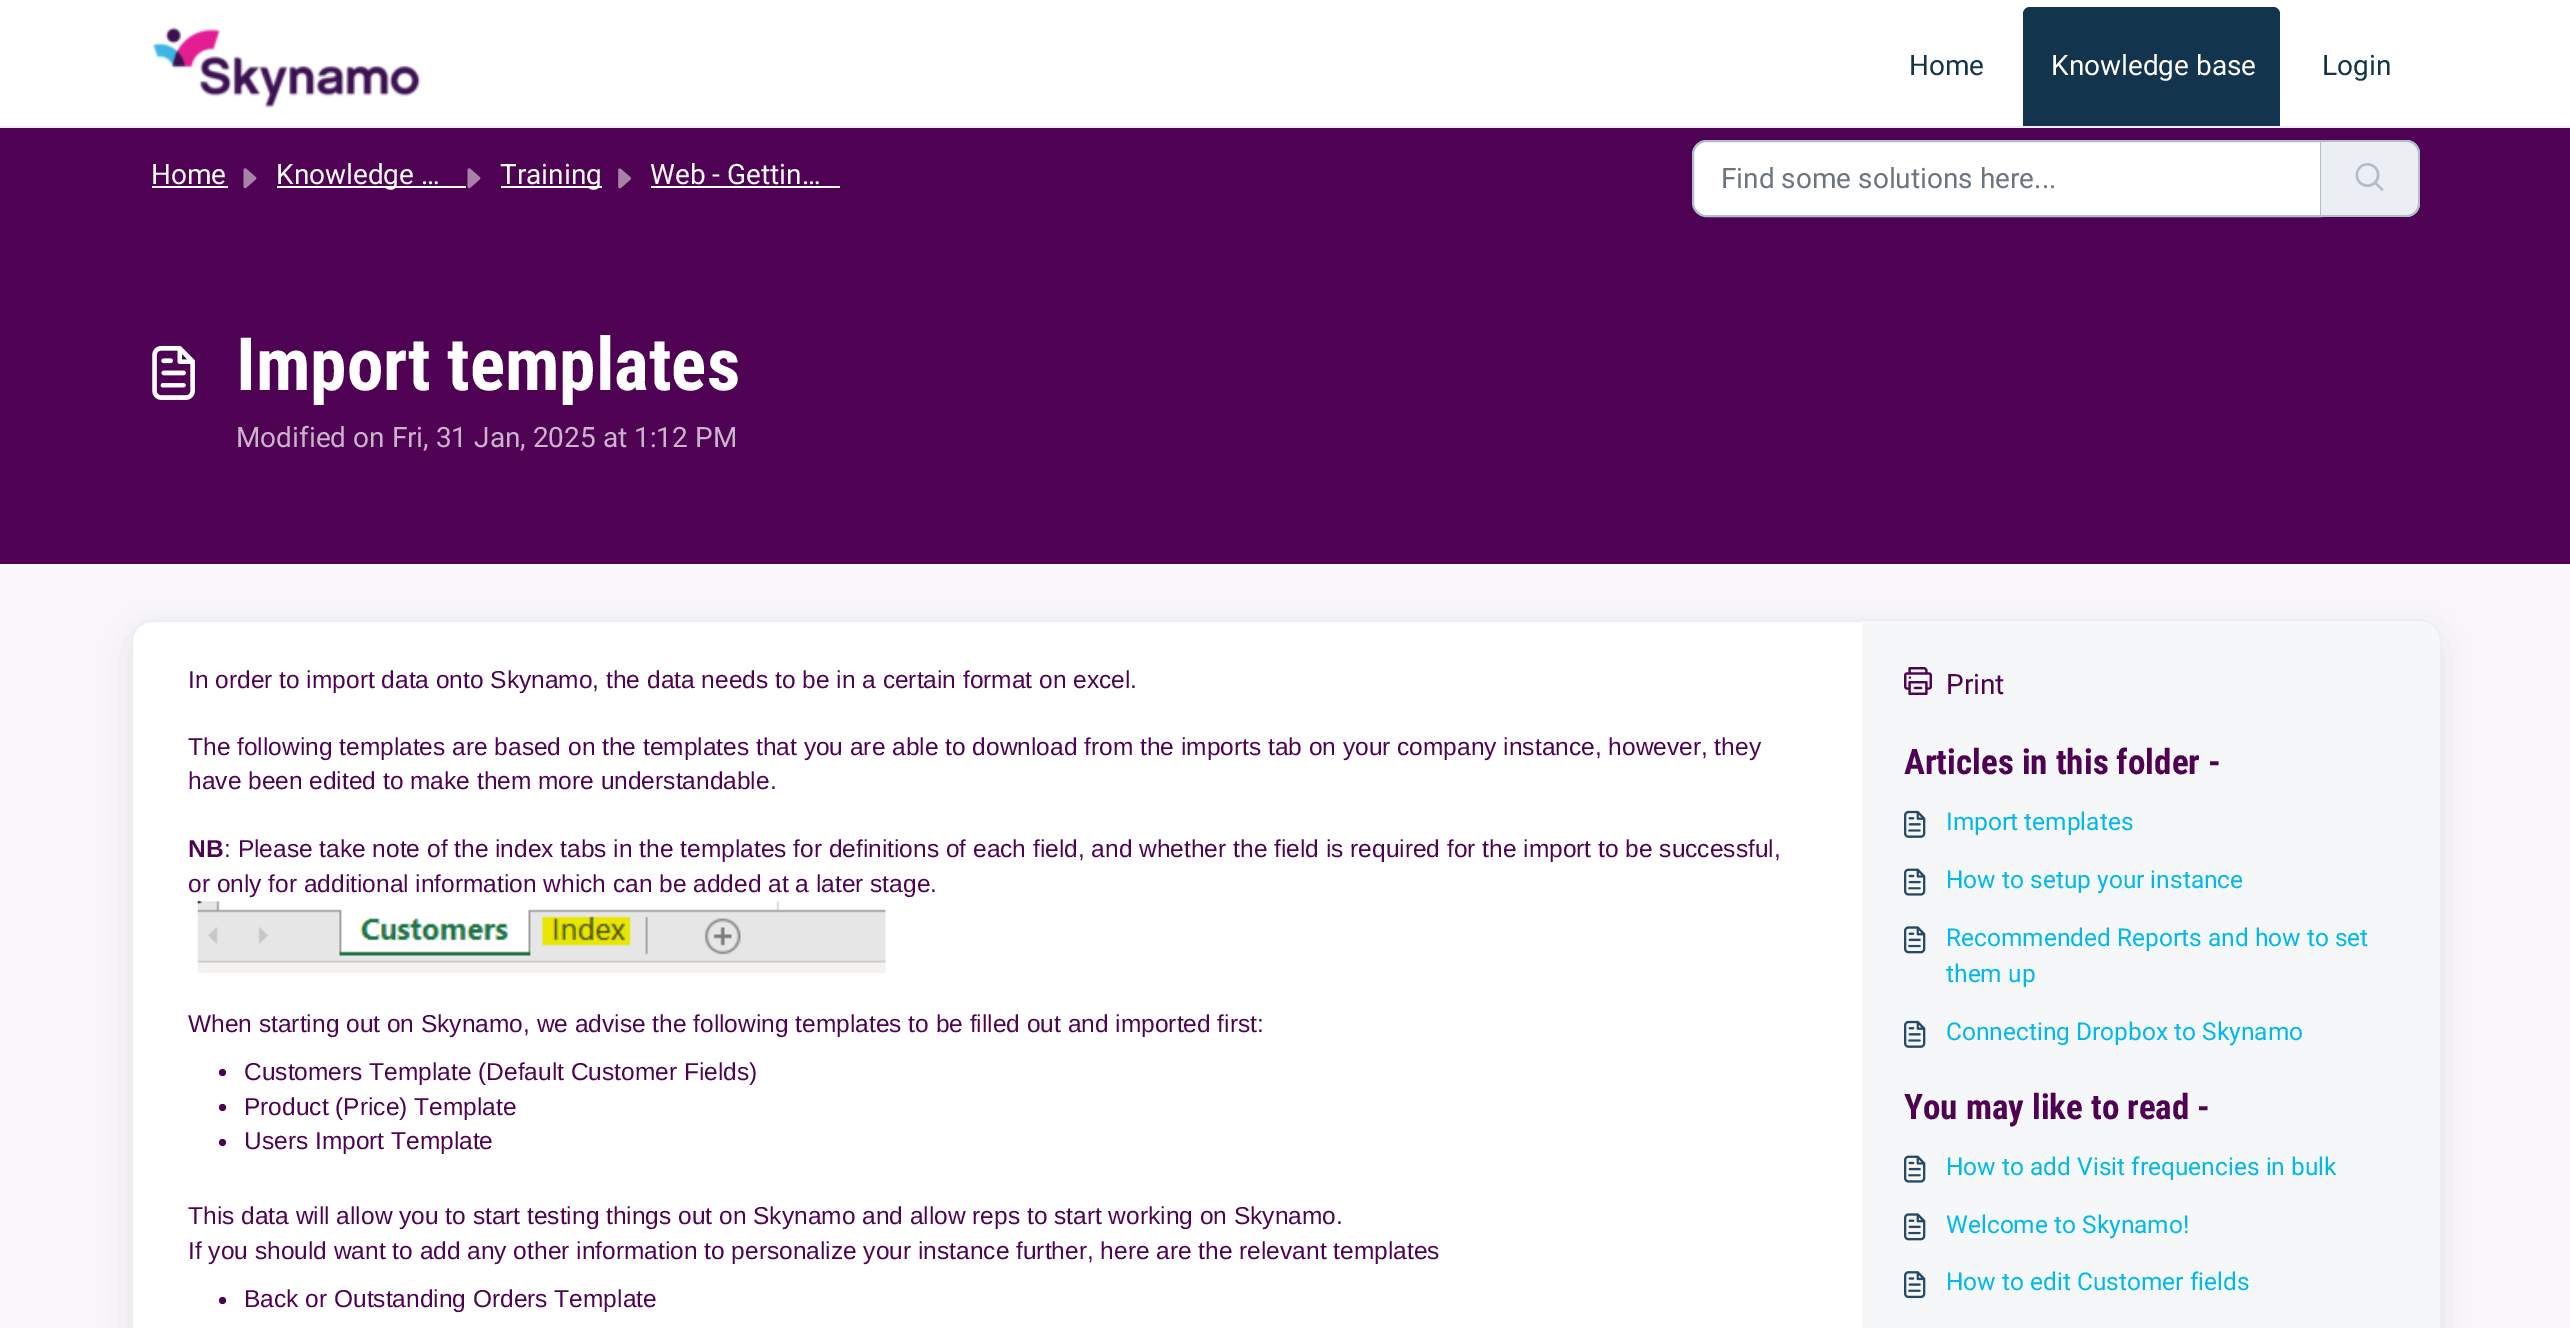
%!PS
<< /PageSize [2570 1328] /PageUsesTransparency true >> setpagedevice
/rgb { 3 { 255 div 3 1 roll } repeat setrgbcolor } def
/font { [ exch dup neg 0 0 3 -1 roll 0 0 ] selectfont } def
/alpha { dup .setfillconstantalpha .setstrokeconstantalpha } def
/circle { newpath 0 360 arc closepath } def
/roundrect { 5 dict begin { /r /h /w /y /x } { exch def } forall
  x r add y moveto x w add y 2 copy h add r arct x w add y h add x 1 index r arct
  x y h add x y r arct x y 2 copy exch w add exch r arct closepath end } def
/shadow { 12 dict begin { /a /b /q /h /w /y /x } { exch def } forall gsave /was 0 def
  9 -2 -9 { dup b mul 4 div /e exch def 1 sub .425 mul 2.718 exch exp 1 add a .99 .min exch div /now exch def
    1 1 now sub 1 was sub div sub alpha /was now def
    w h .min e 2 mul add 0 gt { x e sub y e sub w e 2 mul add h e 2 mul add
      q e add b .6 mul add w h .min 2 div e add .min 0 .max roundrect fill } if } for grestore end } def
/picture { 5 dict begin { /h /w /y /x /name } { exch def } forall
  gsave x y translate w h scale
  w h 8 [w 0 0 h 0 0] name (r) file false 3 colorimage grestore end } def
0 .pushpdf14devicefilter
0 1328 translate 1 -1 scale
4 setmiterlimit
249 247 249 rgb
0 0 2570 1328 rectfill
255 255 255 rgb
0 0 2570 126 rectfill
235 239 243 rgb
0 126 2570 2 rectfill
(img/1.rgb) 152 27 269 82 picture
18 52 77 rgb
2030 7 moveto 2273 7 lineto 2277 7 2280 10 2280 14 curveto 2280 126 lineto 2023 126 lineto 2023 14 lineto 2023 10 2026 7 2030 7 curveto closepath fill
79 2 83 rgb
0 128 2570 436 rectfill
255 255 255 rgb
152 186 76 2 rectfill
(img/2.rgb) 243 168 14 21 picture
277 186 189 2 rectfill
(img/2.rgb) 467 168 14 21 picture
501 186 101 2 rectfill
(img/3.rgb) 618 168 13 21 picture
651 186 189 2 rectfill
1706 141 moveto 2321 141 lineto 2321 216 lineto 1706 216 lineto 1699 216 1693 210 1693 203 curveto 1693 154 lineto 1693 147 1699 141 1706 141 curveto closepath gsave fill grestore
177 189 200 rgb
2 setlinewidth
stroke
235 239 243 rgb
2321 140 moveto 2406 140 lineto 2413.5 140 2420 146.5 2420 154 curveto 2420 203 lineto 2420 210.5 2413.5 217 2406 217 curveto 2321 217 lineto closepath fill
177 189 200 rgb
2320 140 moveto 2406 140 lineto 2414 140 2420 146 2420 154 curveto 2420 203 lineto 2420 211 2414 217 2406 217 curveto 2320 217 lineto closepath 2320 142 moveto 2406 142 lineto 2413 142 2418 147 2418 154 curveto 2418 203 lineto 2418 210 2413 215 2406 215 curveto 2320 215 lineto closepath eofill
(img/4.rgb) 2355 163 29 28 picture
(img/5.rgb) 152 345 43 55 picture
39 49 58 rgb
131 630 2310 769 21 16.5 0.1 shadow
255 255 255 rgb
132 621 2308 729 20 roundrect gsave fill grestore
235 239 243 rgb
stroke
(img/6.rgb) 197 901 689 72 picture
79 2 83 rgb
222.5 1072.5 3.5 circle fill
222.5 1107.5 3.5 circle fill
222.5 1142.5 3.5 circle fill
222.5 1300.5 3.5 circle fill
245 247 249 rgb
1862 621 moveto 2419 621 lineto 2430.5 621 2440 630.5 2440 642 curveto 2440 1328 lineto 2440 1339.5 2430.5 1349 2419 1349 curveto 1862 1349 lineto closepath fill
(img/7.rgb) 1904 667 28 28 picture
(img/8.rgb) 1904 810 22 28 picture
(img/9.rgb) 1904 868 22 28 picture
(img/10.rgb) 1904 926 22 28 picture
(img/8.rgb) 1904 1020 22 28 picture
(img/9.rgb) 1904 1155 22 28 picture
(img/10.rgb) 1904 1213 22 28 picture
(img/11.rgb) 1904 1271 22 28 picture
/Roboto-Regular 28 font
18 52 77 rgb
1909 75 moveto (Home) show
255 255 255 rgb
2051 75 moveto (Knowledge base) show
18 52 77 rgb
2322 75 moveto (Login) show
255 255 255 rgb
[
  [(Home) 151 184]
  [(Knowledge …) 276 184]
  [(Training) 500 184]
  [(Web - Gettin…) 650 184]
] { aload pop moveto show } forall
108 117 125 rgb
1721 188 moveto (Find some solutions here...) show
/RobotoCondensed-Bold 73.5 font
255 255 255 rgb
236 390 moveto (Import templates) show
/Roboto-Regular 28 font
202 179 203 rgb
236 447 moveto (Modified on Fri, 31 Jan, 2025 at 1:12 PM) show
/LiberationSans-Regular 24.5 font
79 2 83 rgb
[
  [(In order to import data onto Skynamo, the data needs to be in a certain format on excel.) 188 688]
  [(The following templates are based on the templates that you are able to download from the imports tab on your company instance, however, they) 188 755]
  [(have been edited to make them more understandable.) 188 789]
] { aload pop moveto show } forall
/LiberationSans-Bold 24.5 font
188 857 moveto (NB) show
/LiberationSans-Regular 24.5 font
[
  [(: Please take note of the index tabs in the templates for definitions of each field, and whether the field is required for the import to be successful,) 224 857]
  [(or only for additional information which can be added at a later stage.) 188 892]
  [(When starting out on Skynamo, we advise the following templates to be filled out and imported first:) 188 1032]
  [(Customers Template \(Default Customer Fields\)) 244 1080]
  [(Product \(Price\) Template) 244 1115]
  [(Users Import Template) 244 1149]
  [(This data will allow you to start testing things out on Skynamo and allow reps to start working on Skynamo.) 188 1224]
  [(If you should want to add any other information to personalize your instance further, here are the relevant templates) 188 1259]
  [(Back or Outstanding Orders Template) 244 1307]
] { aload pop moveto show } forall
/Roboto-Regular 28 font
1946 694 moveto (Print) show
/RobotoCondensed-Bold 35 font
1904 774 moveto (Articles in this folder -) show
/Roboto-Regular 24.5 font
0 184 235 rgb
[
  [(Import templates) 1946 830]
  [(How to setup your instance) 1946 888]
  [(Recommended Reports and how to set) 1946 946]
  [(them up) 1946 982]
  [(Connecting Dropbox to Skynamo) 1946 1040]
] { aload pop moveto show } forall
/RobotoCondensed-Bold 35 font
79 2 83 rgb
1904 1119 moveto (You may like to read -) show
/Roboto-Regular 24.5 font
0 184 235 rgb
[
  [(How to add Visit frequencies in bulk) 1946 1175]
  [(Welcome to Skynamo!) 1946 1233]
  [(How to edit Customer fields) 1946 1290]
] { aload pop moveto show } forall
.poppdf14devicefilter showpage
